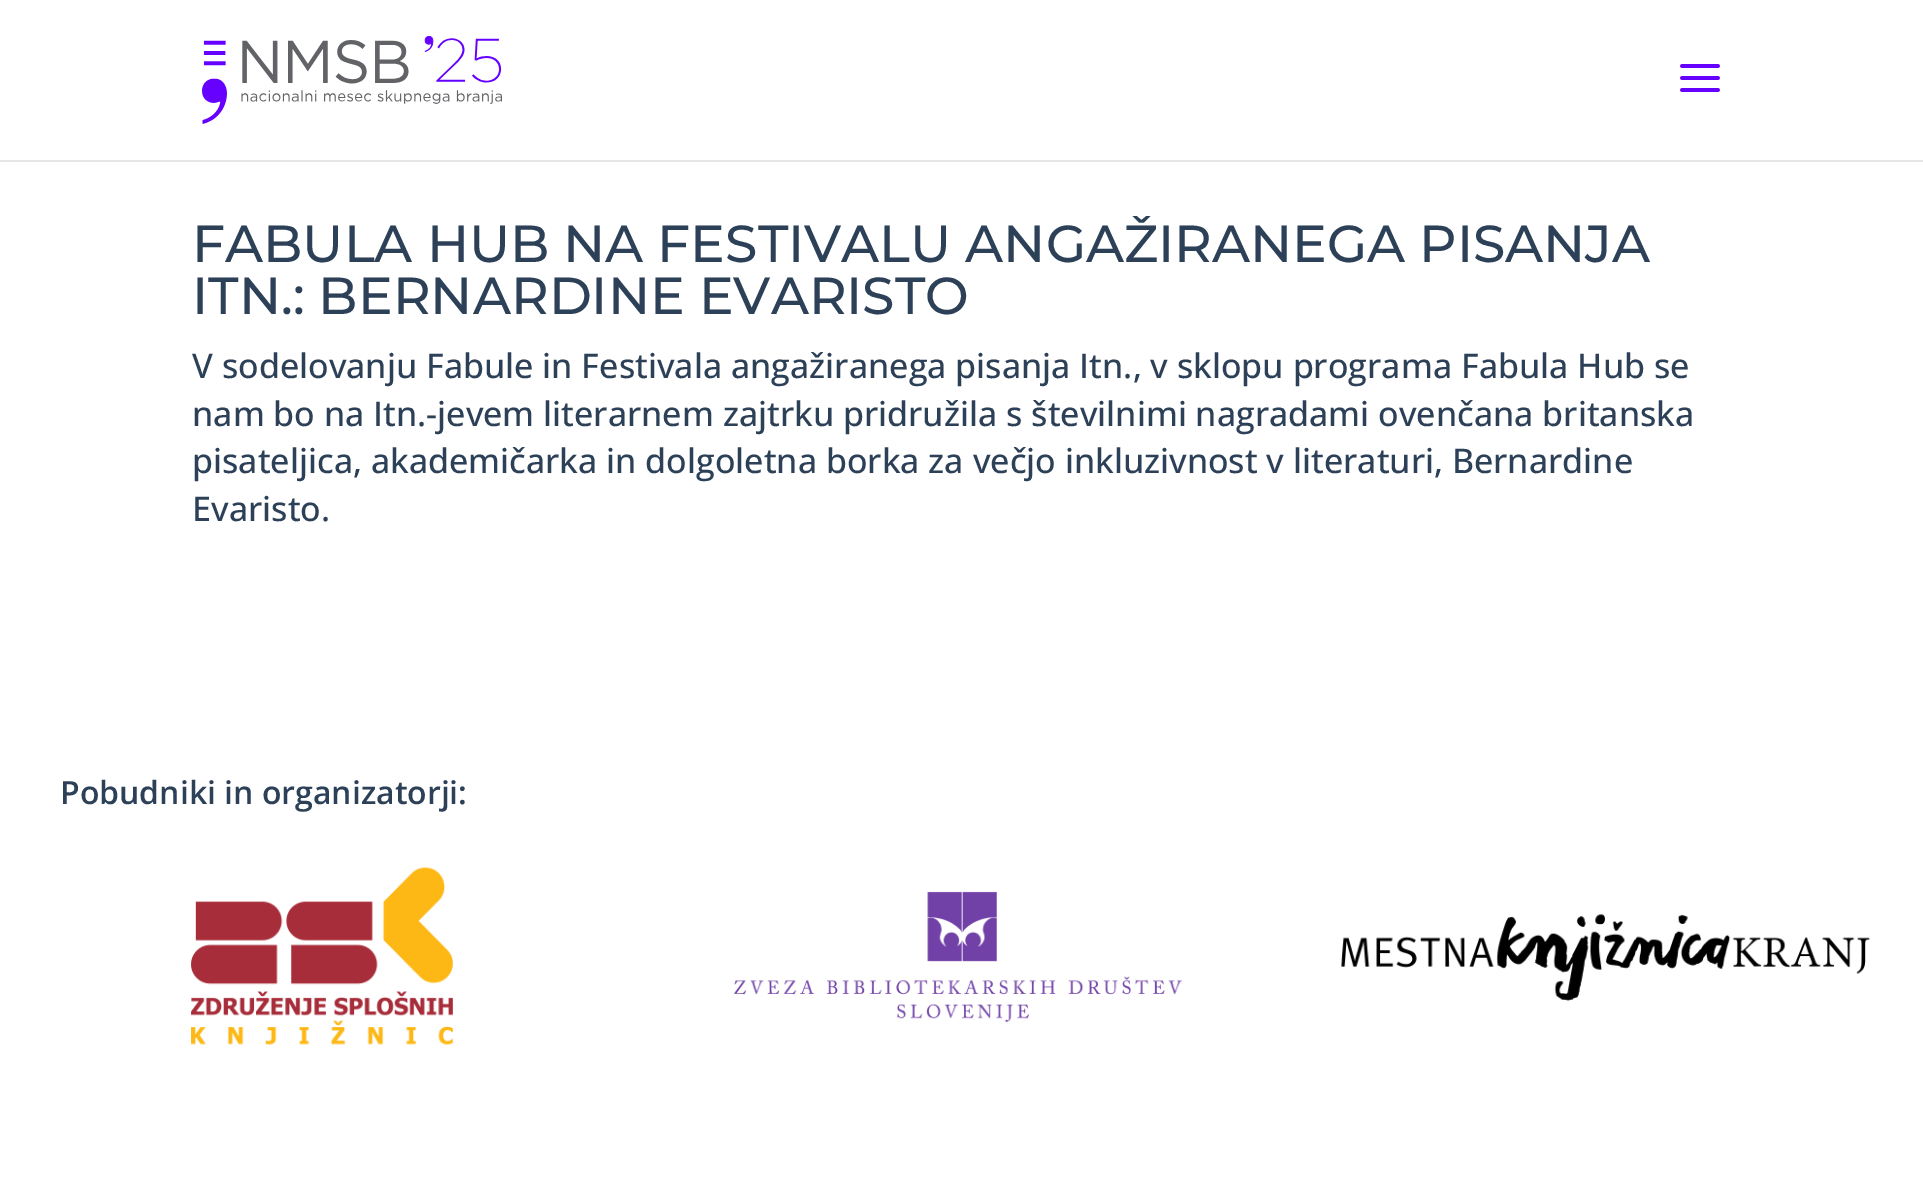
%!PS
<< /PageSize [1923 1201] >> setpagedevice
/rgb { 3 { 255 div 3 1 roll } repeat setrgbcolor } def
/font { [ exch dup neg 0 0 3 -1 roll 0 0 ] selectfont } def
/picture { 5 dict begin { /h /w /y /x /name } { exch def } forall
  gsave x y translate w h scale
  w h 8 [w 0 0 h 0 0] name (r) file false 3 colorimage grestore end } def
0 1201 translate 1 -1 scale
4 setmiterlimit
255 255 255 rgb
0 0 1923 1201 rectfill
230 230 230 rgb
0 160 1923 2 rectfill
(img/1.rgb) 202 36 300 88 picture
(img/2.rgb) 1680 64 40 28 picture
(img/3.rgb) 191 867 262 178 picture
(img/4.rgb) 734 891 449 132 picture
(img/5.rgb) 1341 914 529 87 picture
/Montserrat-Thin 52 font
44 64 88 rgb
192 262 moveto (FABULA HUB NA FESTIVALU ANGAŽIRANEGA PISANJA) show
192 314 moveto (ITN.: BERNARDINE EVARISTO) show
/OpenSans-Medium 34 font
[
  [(V sodelovanju Fabule in Festivala angažiranega pisanja Itn., v sklopu programa Fabula Hub se) 192 378]
  [(nam bo na Itn.-jevem literarnem zajtrku pridružila s številnimi nagradami ovenčana britanska) 192 426]
  [(pisateljica, akademičarka in dolgoletna borka za večjo inkluzivnost v literaturi, Bernardine) 192 473]
  [(Evaristo.) 192 521]
] { aload pop moveto show } forall
/OpenSans-SemiBold 32 font
60 804 moveto (Pobudniki in organizatorji:) show
showpage
